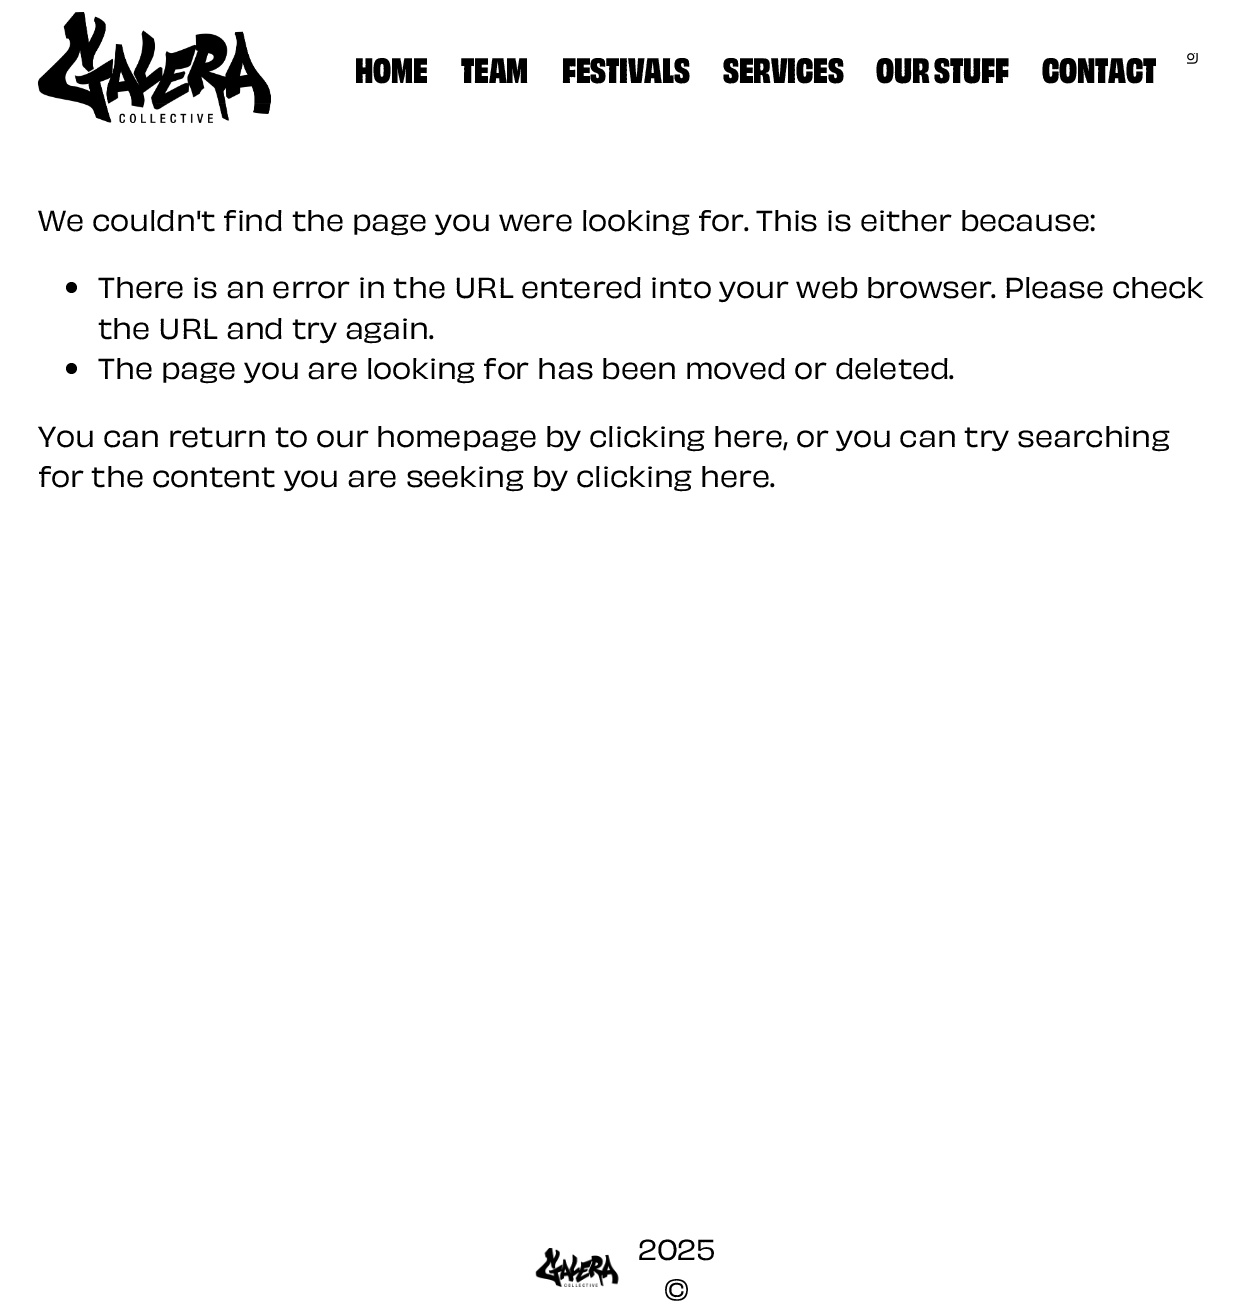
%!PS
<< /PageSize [1254 1310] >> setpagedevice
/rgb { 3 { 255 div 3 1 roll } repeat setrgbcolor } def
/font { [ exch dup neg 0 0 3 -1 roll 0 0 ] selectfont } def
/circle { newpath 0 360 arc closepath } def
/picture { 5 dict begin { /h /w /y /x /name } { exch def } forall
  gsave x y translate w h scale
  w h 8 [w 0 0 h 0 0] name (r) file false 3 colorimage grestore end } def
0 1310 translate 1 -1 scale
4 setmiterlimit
255 255 255 rgb
0 0 1254 1310 rectfill
(img/1.rgb) 37 12 234 111 picture
(img/2.rgb) 1187 53 11 11 picture
0 0 0 rgb
71.5 287.5 5.5 circle fill
71.5 368.5 5.5 circle fill
(img/3.rgb) 535 1248 84 39 picture
/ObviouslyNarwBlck-Medium 33 font
355 83 moveto -0.25 0 (HOME) ashow
461 83 moveto -0.25 0 (TEAM) ashow
562 83 moveto -0.25 0 (FESTIVALS) ashow
723 83 moveto -0.25 0 (SERVICES) ashow
876 83 moveto -0.25 0 (OUR STUFF) ashow
1042 83 moveto -0.25 0 (CONTACT) ashow
/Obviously-SemiBold 27 font
38 231 moveto -0.27 0 (We couldn't find the page you were looking for. This is either because:) ashow
98 298 moveto -0.27 0 (There is an error in the URL entered into your web browser. Please check) ashow
98 339 moveto -0.27 0 (the URL and try again.) ashow
98 379 moveto -0.27 0 (The page you are looking for has been moved or deleted.) ashow
38 447 moveto -0.27 0 (You can return to our homepage by clicking here, or you can try searching) ashow
38 487 moveto -0.27 0 (for the content you are seeking by clicking here.) ashow
638 1260 moveto -0.27 0 (2025) ashow
664 1300 moveto -0.27 0 (©) ashow
showpage
